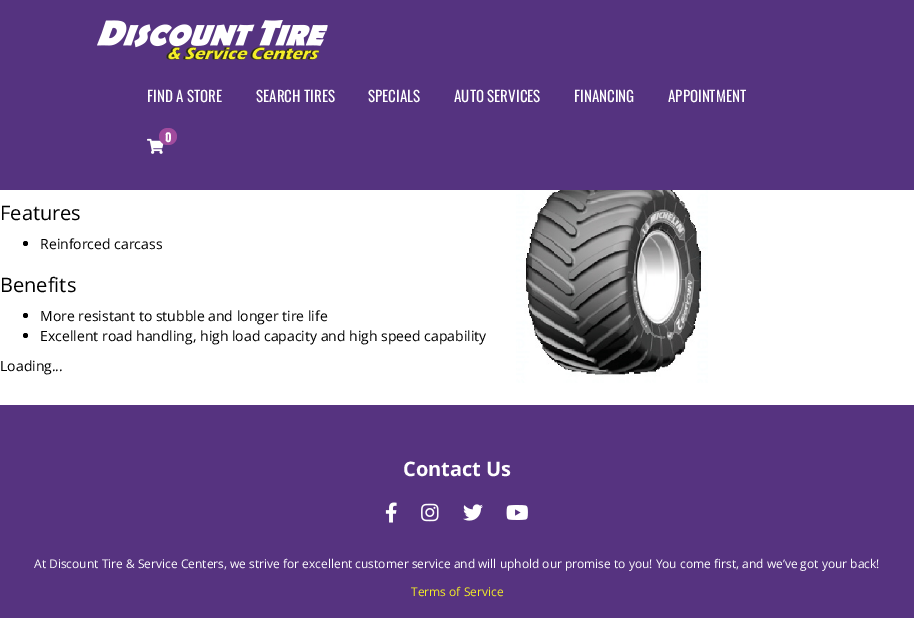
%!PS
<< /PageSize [914 618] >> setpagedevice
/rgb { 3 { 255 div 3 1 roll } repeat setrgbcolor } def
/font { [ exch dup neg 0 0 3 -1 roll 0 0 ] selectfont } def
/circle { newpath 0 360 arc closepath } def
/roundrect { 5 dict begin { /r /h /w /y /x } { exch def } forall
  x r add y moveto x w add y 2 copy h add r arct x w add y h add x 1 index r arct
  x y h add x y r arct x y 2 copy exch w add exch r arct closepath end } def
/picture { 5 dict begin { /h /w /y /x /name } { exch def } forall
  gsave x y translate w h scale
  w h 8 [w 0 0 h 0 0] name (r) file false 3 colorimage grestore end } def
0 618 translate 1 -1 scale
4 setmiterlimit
255 255 255 rgb
0 0 914 618 rectfill
85 51 128 rgb
0 0 914 190 rectfill
(img/1.rgb) 97 20 231 40 picture
(img/2.rgb) 147 138 17 16 picture
161 75 157 rgb
159 128 18 17 8.5 roundrect fill
0 0 0 rgb
25.5 243.5 2.5 circle fill
25.5 315.5 2.5 circle fill
25.5 335.5 2.5 circle fill
(img/3.rgb) 516 190 192 193 picture
86 51 128 rgb
0 405 914 213 rectfill
(img/4.rgb) 385 502 12 21 picture
(img/5.rgb) 421 503 18 19 picture
(img/6.rgb) 463 504 20 17 picture
(img/7.rgb) 506 505 22 15 picture
/Oswald-Regular 15 font
255 255 255 rgb
[
  [(FIND A STORE) 147 102]
  [(SEARCH TIRES) 256 102]
  [(SPECIALS) 368 102]
  [(AUTO SERVICES) 454 102]
  [(FINANCING) 574 102]
  [(APPOINTMENT) 668 102]
] { aload pop moveto show } forall
/Oswald-Bold 12 font
165 142 moveto (0) show
/OpenSans-Regular 20 font
0 0 0 rgb
0 220 moveto (Features) show
/OpenSans-Regular 14 font
40 249 moveto (Reinforced carcass) show
/OpenSans-Regular 20 font
0 292 moveto (Benefits) show
/OpenSans-Regular 14 font
[
  [(More resistant to stubble and longer tire life) 40 321]
  [(Excellent road handling, high load capacity and high speed capability) 40 341]
  [(Loading...) 0 371]
] { aload pop moveto show } forall
/OpenSans-Bold 20 font
255 255 255 rgb
403 476 moveto (Contact Us) show
/OpenSans-Regular 12 font
34 568 moveto (At Discount Tire & Service Centers, we strive for excellent customer service and will uphold our promise to you! You come first, and we’ve got your back!) show
243 237 39 rgb
411 596 moveto (Terms of Service) show
showpage
